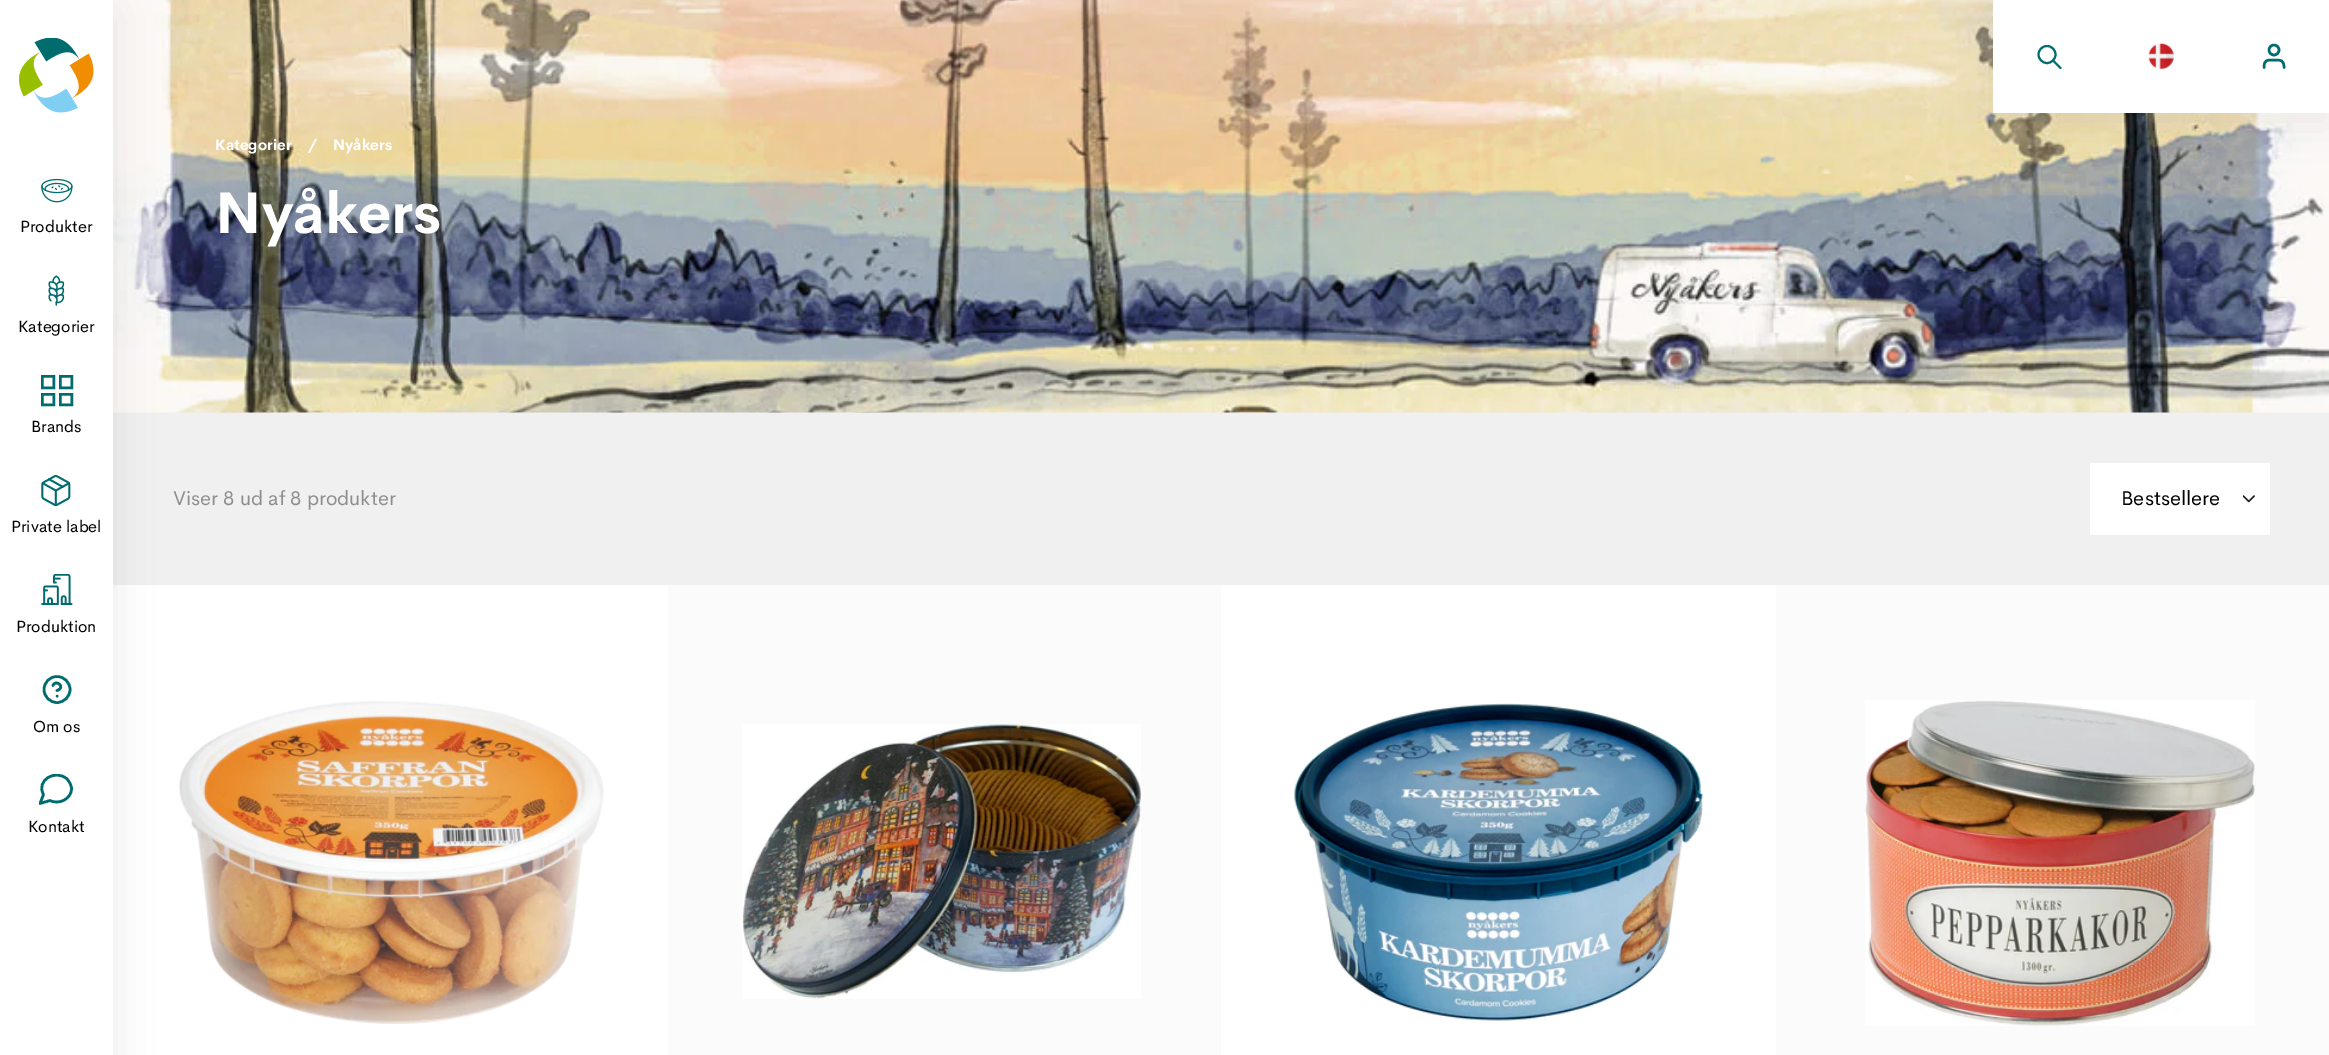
%!PS
<< /PageSize [2329 1055] /PageUsesTransparency true >> setpagedevice
/rgb { 3 { 255 div 3 1 roll } repeat setrgbcolor } def
/font { [ exch dup neg 0 0 3 -1 roll 0 0 ] selectfont } def
/alpha { dup .setfillconstantalpha .setstrokeconstantalpha } def
/circle { newpath 0 360 arc closepath } def
/roundrect { 5 dict begin { /r /h /w /y /x } { exch def } forall
  x r add y moveto x w add y 2 copy h add r arct x w add y h add x 1 index r arct
  x y h add x y r arct x y 2 copy exch w add exch r arct closepath end } def
/shadow { 12 dict begin { /a /b /q /h /w /y /x } { exch def } forall gsave /was 0 def
  9 -2 -9 { dup b mul 4 div /e exch def 1 sub .425 mul 2.718 exch exp 1 add a .99 .min exch div /now exch def
    1 1 now sub 1 was sub div sub alpha /was now def
    w h .min e 2 mul add 0 gt { x e sub y e sub w e 2 mul add h e 2 mul add
      q e add b .6 mul add w h .min 2 div e add .min 0 .max roundrect fill } if } for grestore end } def
/picture { 5 dict begin { /h /w /y /x /name } { exch def } forall
  gsave x y translate w h scale
  w h 8 [w 0 0 h 0 0] name (r) file false 3 colorimage grestore end } def
0 .pushpdf14devicefilter
0 1055 translate 1 -1 scale
4 setmiterlimit
240 240 240 rgb
0 0 2329 1055 rectfill
(img/7.rgb) 113 0 2216 413 picture
0 0 0 rgb
1993 15 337 113 0 20 0.06 shadow
255 255 255 rgb
1993 0 336 113 rectfill
(img/1.rgb) 2148 43 26 26 picture
0 108 111 rgb
2 setlinewidth
1 setlinecap
1 setlinejoin
2053 60.5 moveto 2060.5 68 lineto stroke
0 setlinecap
0 setlinejoin
2047 54.5 8.5 circle stroke
2.5 setlinewidth
1 setlinecap
1 setlinejoin
2284 67.5 moveto 2284 59.5 2280.5 60 2274 60 curveto 2267 60 2264 59.5 2264 67.5 curveto stroke
0 setlinecap
0 setlinejoin
2274 50 5 circle stroke
255 255 255 rgb
113 585 555 470 rectfill
0 0 0 rgb
0 15 113 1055 0 19 0.08 shadow
255 255 255 rgb
0 0 113 1055 rectfill
(img/2.rgb) 19 38 75 75 picture
(img/3.rgb) 41 178 32 25 picture
(img/4.rgb) 48 275 17 31 picture
0 108 111 rgb
42.25 376.25 11.5 11.5 rectstroke
60.25 376.25 11.5 11.5 rectstroke
60.25 394.25 11.5 10.5 rectstroke
42.25 394.25 11.5 10.5 rectstroke
(img/5.rgb) 41 475 30 31 picture
(img/6.rgb) 41 574 32 31 picture
2.6 setlinewidth
57 689.5 13 circle stroke
1 setlinecap
1 setlinejoin
53 685.5 moveto 55.5 678.5 66.5 687.5 57 690.5 curveto 57 696 moveto 57 696 lineto stroke
gsave
39 774 35 31 rectclip
71.5 788.5 moveto 71.5 799 59 805 50 800.5 curveto 40 803.5 lineto 43.5 794.5 lineto 35.5 780.5 55.5 768.5 67 779 curveto 69.5 781.5 71 784.5 71.5 788 curveto stroke
grestore
255 255 255 rgb
2090 463 180 72 rectfill
(img/8.rgb) 2243 495 12 8 picture
(img/9.rgb) 178 701 426 323 picture
251 251 251 rgb
668 585 553 470 rectfill
(img/10.rgb) 742 724 399 275 picture
255 255 255 rgb
1221 585 555 470 rectfill
(img/11.rgb) 1294 703 410 318 picture
251 251 251 rgb
1776 585 553 470 rectfill
(img/12.rgb) 1865 700 390 326 picture
/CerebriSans-Regular 16.25 font
0 0 0 rgb
[
  [(Produkter) 20 232]
  [(Kategorier) 18 332]
  [(Brands) 31 432]
  [(Private label) 11 532]
  [(Produktion) 16 632]
  [(Om os) 33 732]
  [(Kontakt) 28 832]
] { aload pop moveto show } forall
/CerebriSans-Bold 15 font
255 255 255 rgb
[
  [(Kategorier) 215 150]
  [(/) 308 150]
  [(Nyåkers) 333 150]
] { aload pop moveto show } forall
/CerebriSans-Bold 57.5 font
215 233 moveto (Nyåkers) show
/CerebriSans-Regular 20 font
142 142 142 rgb
173 505 moveto (Viser 8 ud af 8 produkter) show
0 0 0 rgb
2121 505 moveto (Bestsellere) show
.poppdf14devicefilter showpage
